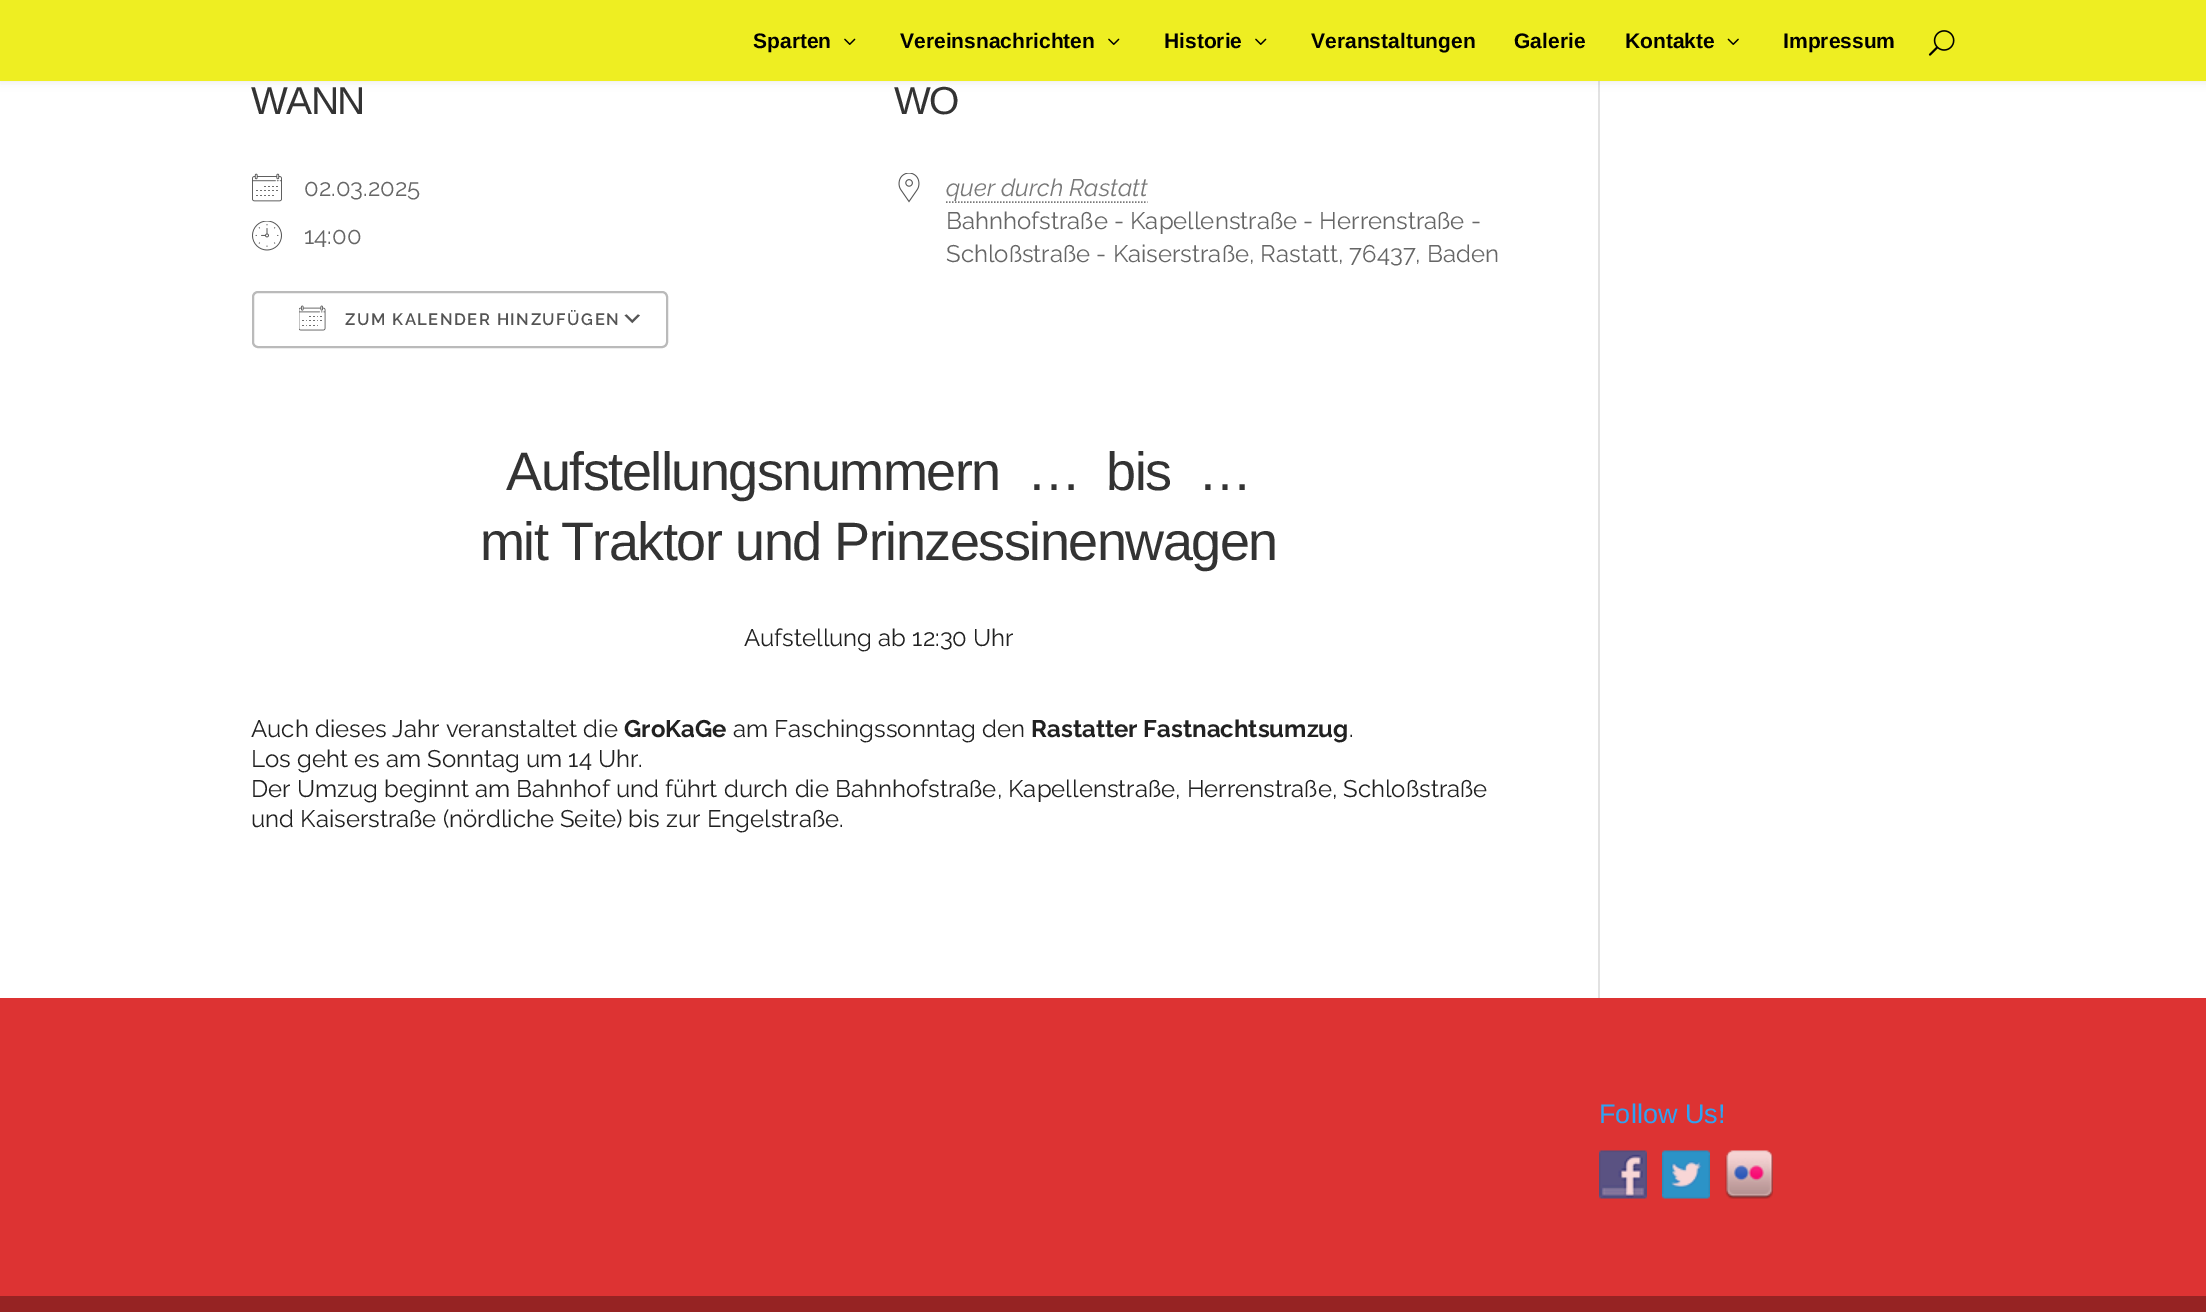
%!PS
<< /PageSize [2206 1312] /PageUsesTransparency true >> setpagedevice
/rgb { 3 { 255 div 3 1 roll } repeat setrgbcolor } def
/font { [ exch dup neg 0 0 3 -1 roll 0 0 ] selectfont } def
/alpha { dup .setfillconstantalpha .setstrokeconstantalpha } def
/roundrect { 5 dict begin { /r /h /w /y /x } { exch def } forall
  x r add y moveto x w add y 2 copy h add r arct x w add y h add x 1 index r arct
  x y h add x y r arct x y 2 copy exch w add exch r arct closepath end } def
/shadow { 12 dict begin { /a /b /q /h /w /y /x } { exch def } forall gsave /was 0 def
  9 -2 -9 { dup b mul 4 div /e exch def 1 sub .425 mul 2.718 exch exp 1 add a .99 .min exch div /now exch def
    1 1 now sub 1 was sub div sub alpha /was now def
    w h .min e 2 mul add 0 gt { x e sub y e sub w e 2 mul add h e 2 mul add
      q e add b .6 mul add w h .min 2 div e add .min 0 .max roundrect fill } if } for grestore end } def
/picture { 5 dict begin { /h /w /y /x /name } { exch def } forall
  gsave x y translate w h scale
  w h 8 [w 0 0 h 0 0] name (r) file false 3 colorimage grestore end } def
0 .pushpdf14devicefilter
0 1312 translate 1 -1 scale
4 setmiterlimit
255 255 255 rgb
0 0 2206 1312 rectfill
226 226 226 rgb
1598 81 2 917 rectfill
0 0 0 rgb
0 0 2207 81 0 5 0.1 shadow
238 238 34 rgb
0 0 2206 81 rectfill
(img/1.rgb) 844 38 12 7 picture
(img/1.rgb) 1108 38 12 7 picture
(img/1.rgb) 1255 38 12 7 picture
(img/2.rgb) 1727 38 12 7 picture
(img/3.rgb) 1928 30 27 26 picture
(img/4.rgb) 252 173 30 29 picture
(img/5.rgb) 252 221 30 30 picture
(img/6.rgb) 624 314 16 10 picture
186 186 186 rgb
2 setlinewidth
253 292 414 55 5 roundrect stroke
(img/7.rgb) 299 305 27 26 picture
(img/8.rgb) 898 173 22 30 picture
120 120 120 rgb
1.5 setlinewidth
[1.5 1.5] 0 setdash
946 202 moveto 1147.5 202 lineto stroke
221 51 51 rgb
0 998 2206 298 rectfill
(img/9.rgb) 1599 1150 48 49 picture
(img/10.rgb) 1662 1150 48 49 picture
(img/11.rgb) 1725 1150 48 49 picture
150 35 35 rgb
0 1296 2206 16 rectfill
/LiberationSans-Bold 21 font
0 0 0 rgb
[
  [(Sparten) 753 48]
  [(Vereinsnachrichten) 900 48]
  [(Historie) 1164 48]
  [(Veranstaltungen) 1311 48]
  [(Galerie) 1514 48]
  [(Kontakte) 1625 48]
  [(Impressum) 1783 48]
] { aload pop moveto show } forall
/LiberationSans-Regular 39 font
51 51 51 rgb
251 114 moveto -1.5 0 (WANN) ashow
/Raleway-Regular 24 font
102 102 102 rgb
304 196 moveto (02.03.2025) show
304 244 moveto (14:00) show
/Raleway-SemiBold 16.5 font
84 84 84 rgb
345 325 moveto 1.5 0 (ZUM KALENDER HINZUFÜGEN) ashow
/LiberationSans-Regular 39 font
51 51 51 rgb
894 114 moveto -1.5 0 (WO) ashow
/Raleway-Italic 24 font
120 120 120 rgb
946 196 moveto (quer durch Rastatt) show
/Raleway-Regular 24 font
102 102 102 rgb
946 229 moveto (Bahnhofstraße - Kapellenstraße - Herrenstraße -) show
946 262 moveto (Schloßstraße - Kaiserstraße, Rastatt, 76437, Baden) show
/LiberationSans-Regular 54 font
51 51 51 rgb
506 490 moveto -1.5 0 (Aufstellungsnummern  …  bis  …) ashow
480 560 moveto -1.5 0 (mit Traktor und Prinzessinenwagen) ashow
/Raleway-Regular 24 font
33 33 33 rgb
744 646 moveto (Aufstellung ab 12:30 Uhr) show
251 737 moveto (Auch dieses Jahr veranstaltet die) show
/Raleway-Bold 24 font
624 737 moveto (GroKaGe) show
/Raleway-Regular 24 font
733 737 moveto (am Faschingssonntag den) show
/Raleway-Bold 24 font
1031 737 moveto (Rastatter Fastnachtsumzug) show
/Raleway-Regular 24 font
[
  [(.) 1349 737]
  [(Los geht es am Sonntag um 14 Uhr.) 251 767]
  [(Der Umzug beginnt am Bahnhof und führt durch die Bahnhofstraße, Kapellenstraße, Herrenstraße, Schloßstraße) 251 797]
  [(und Kaiserstraße \(nördliche Seite\) bis zur Engelstraße.) 251 827]
] { aload pop moveto show } forall
/LiberationSans-Regular 27 font
46 163 242 rgb
1599 1123 moveto (Follow Us!) show
.poppdf14devicefilter showpage
